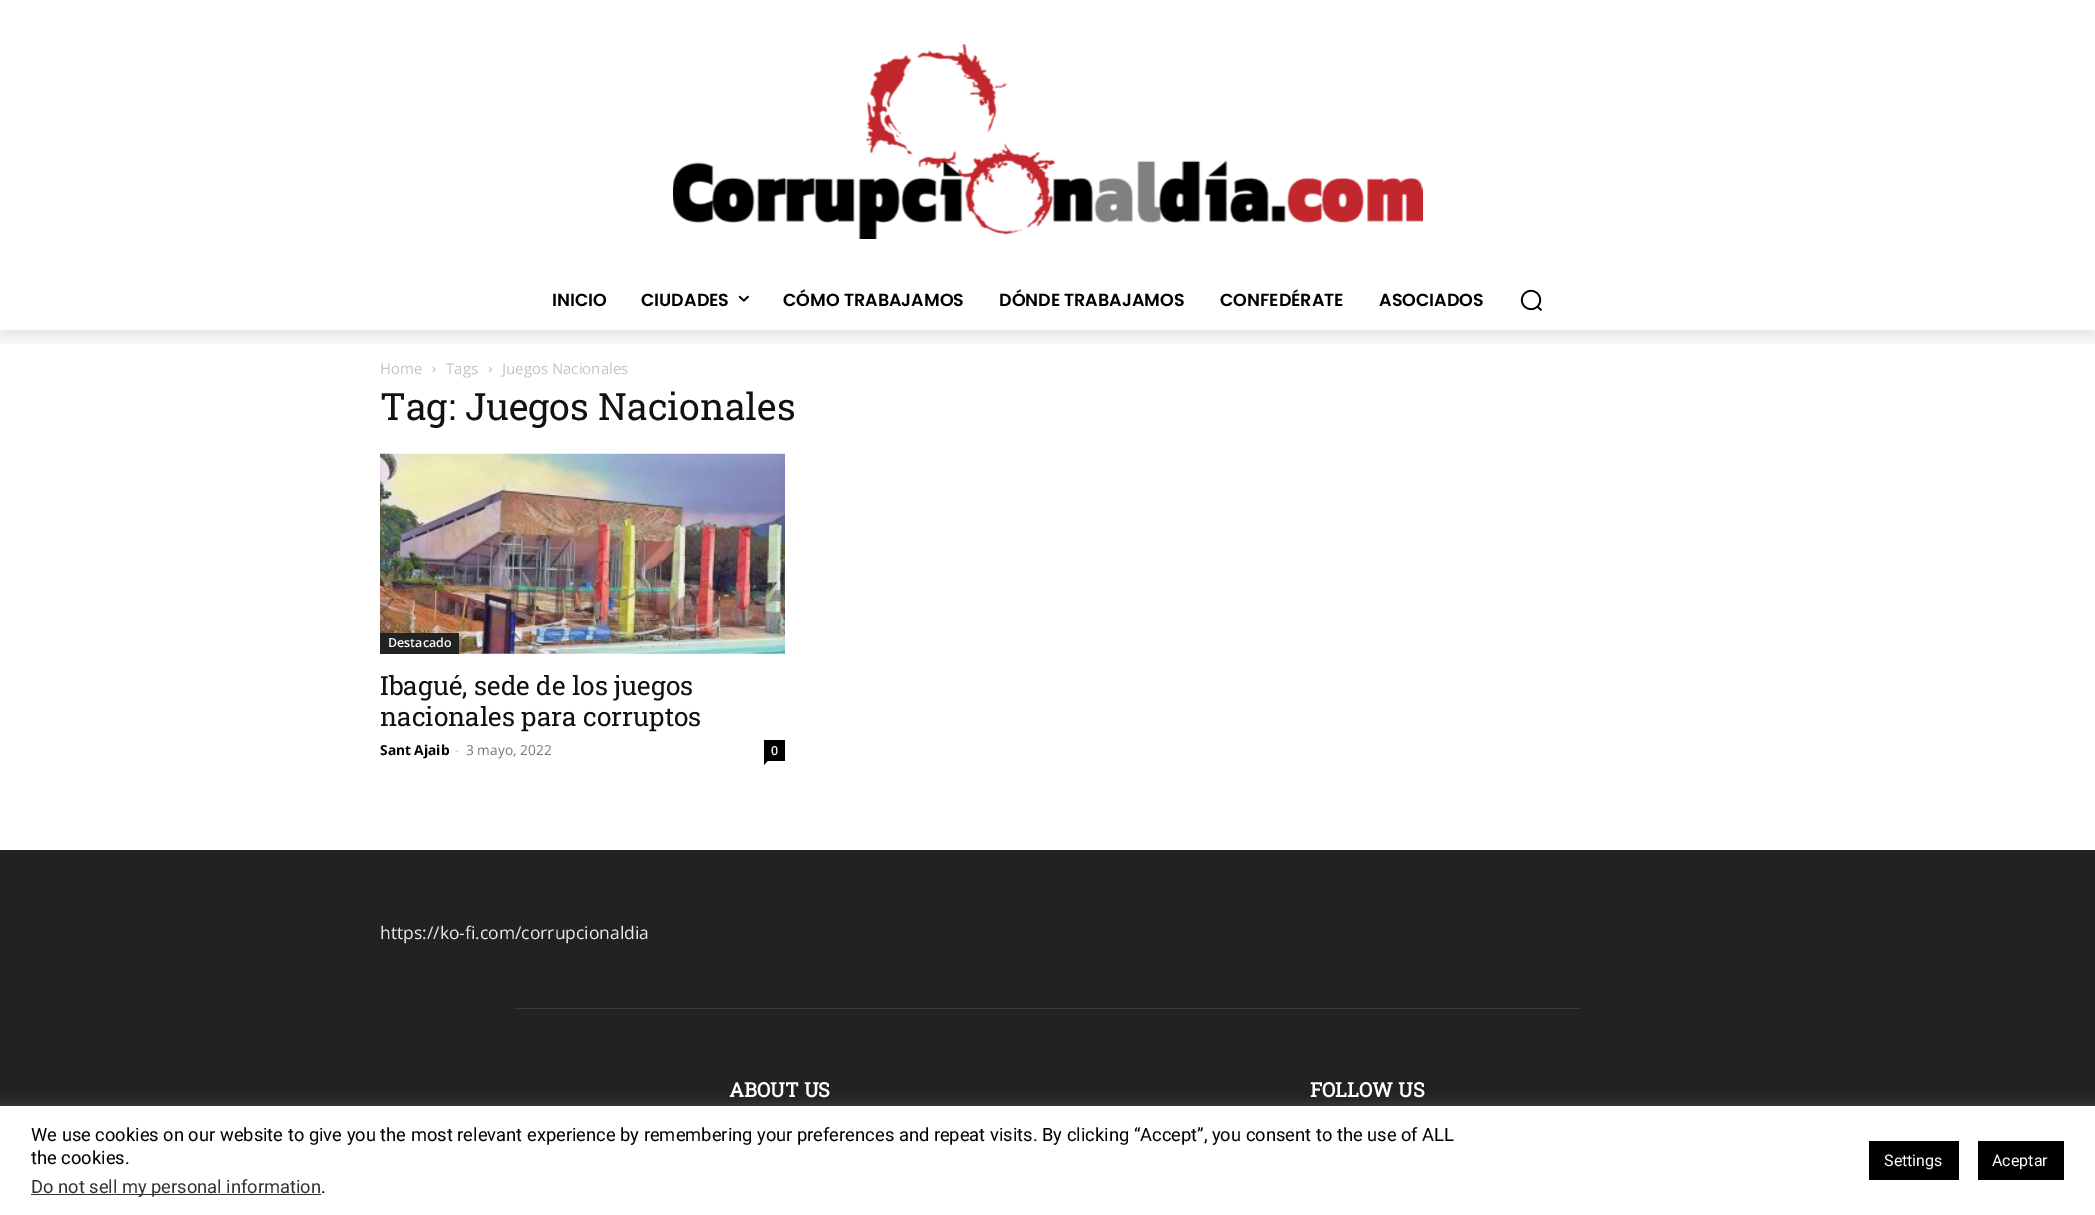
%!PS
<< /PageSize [2095 1215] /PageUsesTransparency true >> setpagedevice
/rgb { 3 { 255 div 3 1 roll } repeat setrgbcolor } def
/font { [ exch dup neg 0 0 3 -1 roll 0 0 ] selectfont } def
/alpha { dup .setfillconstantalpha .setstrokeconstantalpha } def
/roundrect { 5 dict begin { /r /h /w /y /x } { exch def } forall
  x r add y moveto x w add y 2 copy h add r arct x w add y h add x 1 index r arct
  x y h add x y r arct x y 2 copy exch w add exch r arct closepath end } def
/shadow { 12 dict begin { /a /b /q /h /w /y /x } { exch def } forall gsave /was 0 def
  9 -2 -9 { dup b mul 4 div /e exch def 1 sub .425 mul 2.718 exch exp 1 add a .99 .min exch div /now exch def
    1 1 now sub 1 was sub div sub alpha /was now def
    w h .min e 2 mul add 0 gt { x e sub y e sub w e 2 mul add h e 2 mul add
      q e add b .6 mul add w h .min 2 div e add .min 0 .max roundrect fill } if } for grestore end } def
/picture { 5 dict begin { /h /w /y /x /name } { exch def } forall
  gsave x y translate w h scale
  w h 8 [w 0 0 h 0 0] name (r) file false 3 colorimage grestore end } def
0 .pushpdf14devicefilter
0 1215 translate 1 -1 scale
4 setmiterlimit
255 255 255 rgb
0 0 2095 1215 rectfill
(img/1.rgb) 673 44 750 195 picture
gsave
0 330 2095 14 rectclip
0 0 0 rgb
0 8 2095 330 0 7.5 0.1 shadow
grestore
(img/2.rgb) 738 295 11 7 picture
(img/3.rgb) 1520 289 23 22 picture
(img/4.rgb) 432 366 4 7 picture
(img/5.rgb) 488 366 4 7 picture
(img/6.rgb) 380 453 405 201 picture
34 34 34 rgb
380 633 79 21 rectfill
0 0 0 rgb
764 740 21 21 rectfill
764 761 moveto 767.5 761 lineto 764 765 lineto closepath fill
34 34 34 rgb
0 850 2095 256 rectfill
56 56 56 rgb
514 1008 1067 1 rectfill
172 171 171 rgb
0 1105 2095 109 0 6 0.3 shadow
[
  [0 1106 2095 109 255 255 255]
  [31 1194 290 1 51 51 51]
  [1869 1141 90 39 0 0 0]
  [1978 1141 86 39 0 0 0]
] { aload pop rgb rectfill } forall
/Poppins-SemiBold 17.5 font
[
  [(INICIO) 552 306]
  [(CIUDADES) 641 306]
  [(CÓMO TRABAJAMOS) 783 306]
  [(DÓNDE TRABAJAMOS) 999 306]
  [(CONFEDÉRATE) 1220 306]
  [(ASOCIADOS) 1379 306]
] { aload pop moveto show } forall
/OpenSans-Regular 15 font
195 195 195 rgb
[
  [(Home) 380 374]
  [(Tags) 446 374]
  [(Juegos Nacionales) 502 374]
] { aload pop moveto show } forall
/RobotoSlab-Regular 37.5 font
17 17 17 rgb
380 420 moveto (Tag: Juegos Nacionales) show
/OpenSans-SemiBold 12.5 font
255 255 255 rgb
388 647 moveto (Destacado) show
/RobotoSlab-Regular 26.25 font
17 17 17 rgb
380 695 moveto (Ibagué, sede de los juegos) show
380 726 moveto (nacionales para corruptos) show
/OpenSans-Bold 13.75 font
0 0 0 rgb
380 755 moveto (Sant Ajaib) show
/OpenSans-Regular 13.75 font
204 204 204 rgb
455 755 moveto (-) show
118 118 118 rgb
466 755 moveto (3 mayo, 2022) show
/OpenSans-SemiBold 12.5 font
255 255 255 rgb
771 755 moveto (0) show
/OpenSans-Regular 17.5 font
234 234 234 rgb
380 939 moveto (https://ko-fi.com/corrupcionaldia) show
/RobotoSlab-Bold 20 font
255 255 255 rgb
729 1097 moveto (ABOUT US) show
1310 1097 moveto (FOLLOW US) show
/Roboto-Regular 18.33 font
0 0 0 rgb
31 1141 moveto (We use cookies on our website to give you the most relevant experience by remembering your preferences and repeat visits. By clicking “Accept”, you consent to the use of ALL) show
31 1164 moveto (the cookies.) show
51 51 51 rgb
31 1193 moveto (Do not sell my personal information) show
0 0 0 rgb
321 1193 moveto (.) show
/Roboto-Regular 16 font
255 255 255 rgb
1884 1166 moveto (Settings) show
1992 1166 moveto (Aceptar) show
.poppdf14devicefilter showpage
